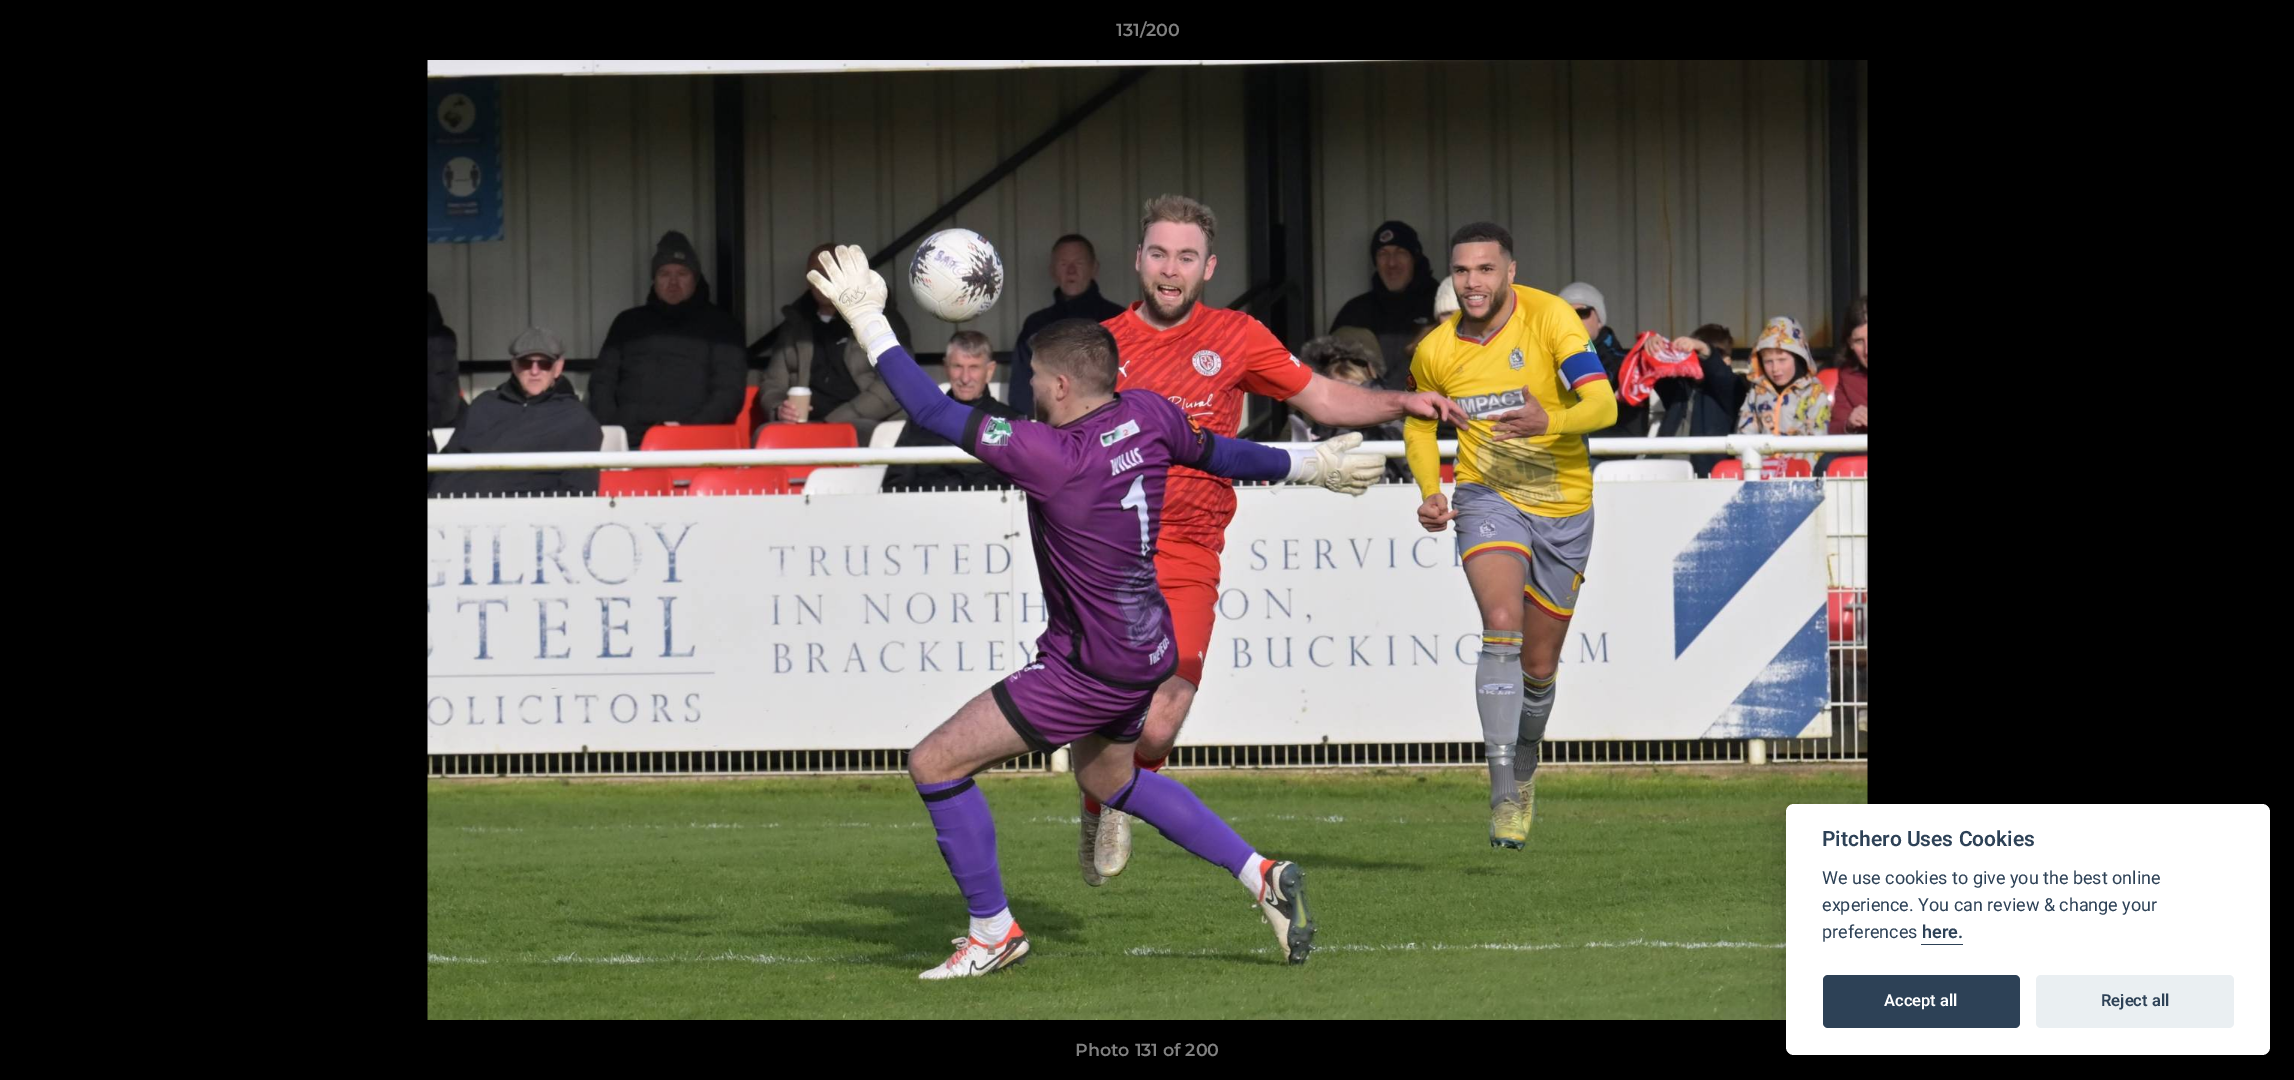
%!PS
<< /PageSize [2294 1080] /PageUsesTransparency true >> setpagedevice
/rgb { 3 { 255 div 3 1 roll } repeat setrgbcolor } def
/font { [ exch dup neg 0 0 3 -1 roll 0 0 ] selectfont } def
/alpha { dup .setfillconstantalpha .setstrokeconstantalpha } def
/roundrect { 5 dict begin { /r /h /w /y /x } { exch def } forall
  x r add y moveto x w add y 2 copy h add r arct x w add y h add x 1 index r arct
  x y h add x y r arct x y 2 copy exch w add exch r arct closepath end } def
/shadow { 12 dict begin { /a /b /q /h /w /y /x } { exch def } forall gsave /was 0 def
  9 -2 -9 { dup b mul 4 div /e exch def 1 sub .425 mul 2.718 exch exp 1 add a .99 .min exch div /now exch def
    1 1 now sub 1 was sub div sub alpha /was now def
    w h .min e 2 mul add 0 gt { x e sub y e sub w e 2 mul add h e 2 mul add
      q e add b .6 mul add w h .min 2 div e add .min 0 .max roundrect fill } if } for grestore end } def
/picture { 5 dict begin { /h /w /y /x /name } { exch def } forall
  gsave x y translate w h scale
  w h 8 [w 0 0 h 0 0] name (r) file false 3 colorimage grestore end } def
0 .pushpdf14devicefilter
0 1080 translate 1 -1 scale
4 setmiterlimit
0 0 0 rgb
0 0 2294 1080 rectfill
(img/1.rgb) 427 60 1441 960 picture
2 2 3 rgb
1786 816 484 252 8 19 0.28 shadow
255 255 255 rgb
1786 804 484 251 8 roundrect fill
45 65 86 rgb
1921 944 42 1 rectfill
1823 975 197 53 5 roundrect fill
234 239 242 rgb
2036 975 198 53 5 roundrect fill
/Montserrat-SemiBold 17.5 font
128 128 128 rgb
1116 36 moveto (131/200) show
1075 1056 moveto (Photo 131 of 200) show
/Roboto-SemiBold 21 font
45 65 86 rgb
1822 846 moveto (Pitchero Uses Cookies) show
/Roboto-Regular 18 font
[
  [(We use cookies to give you the best online) 1822 884]
  [(experience. You can review & change your) 1822 911]
  [(preferences) 1822 938]
] { aload pop moveto show } forall
/Roboto-SemiBold 18 font
1922 938 moveto (here.) show
/Roboto-SemiBold 16.5 font
255 255 255 rgb
1884 1006 moveto (Accept all) show
45 65 86 rgb
2101 1006 moveto (Reject all) show
.poppdf14devicefilter showpage
